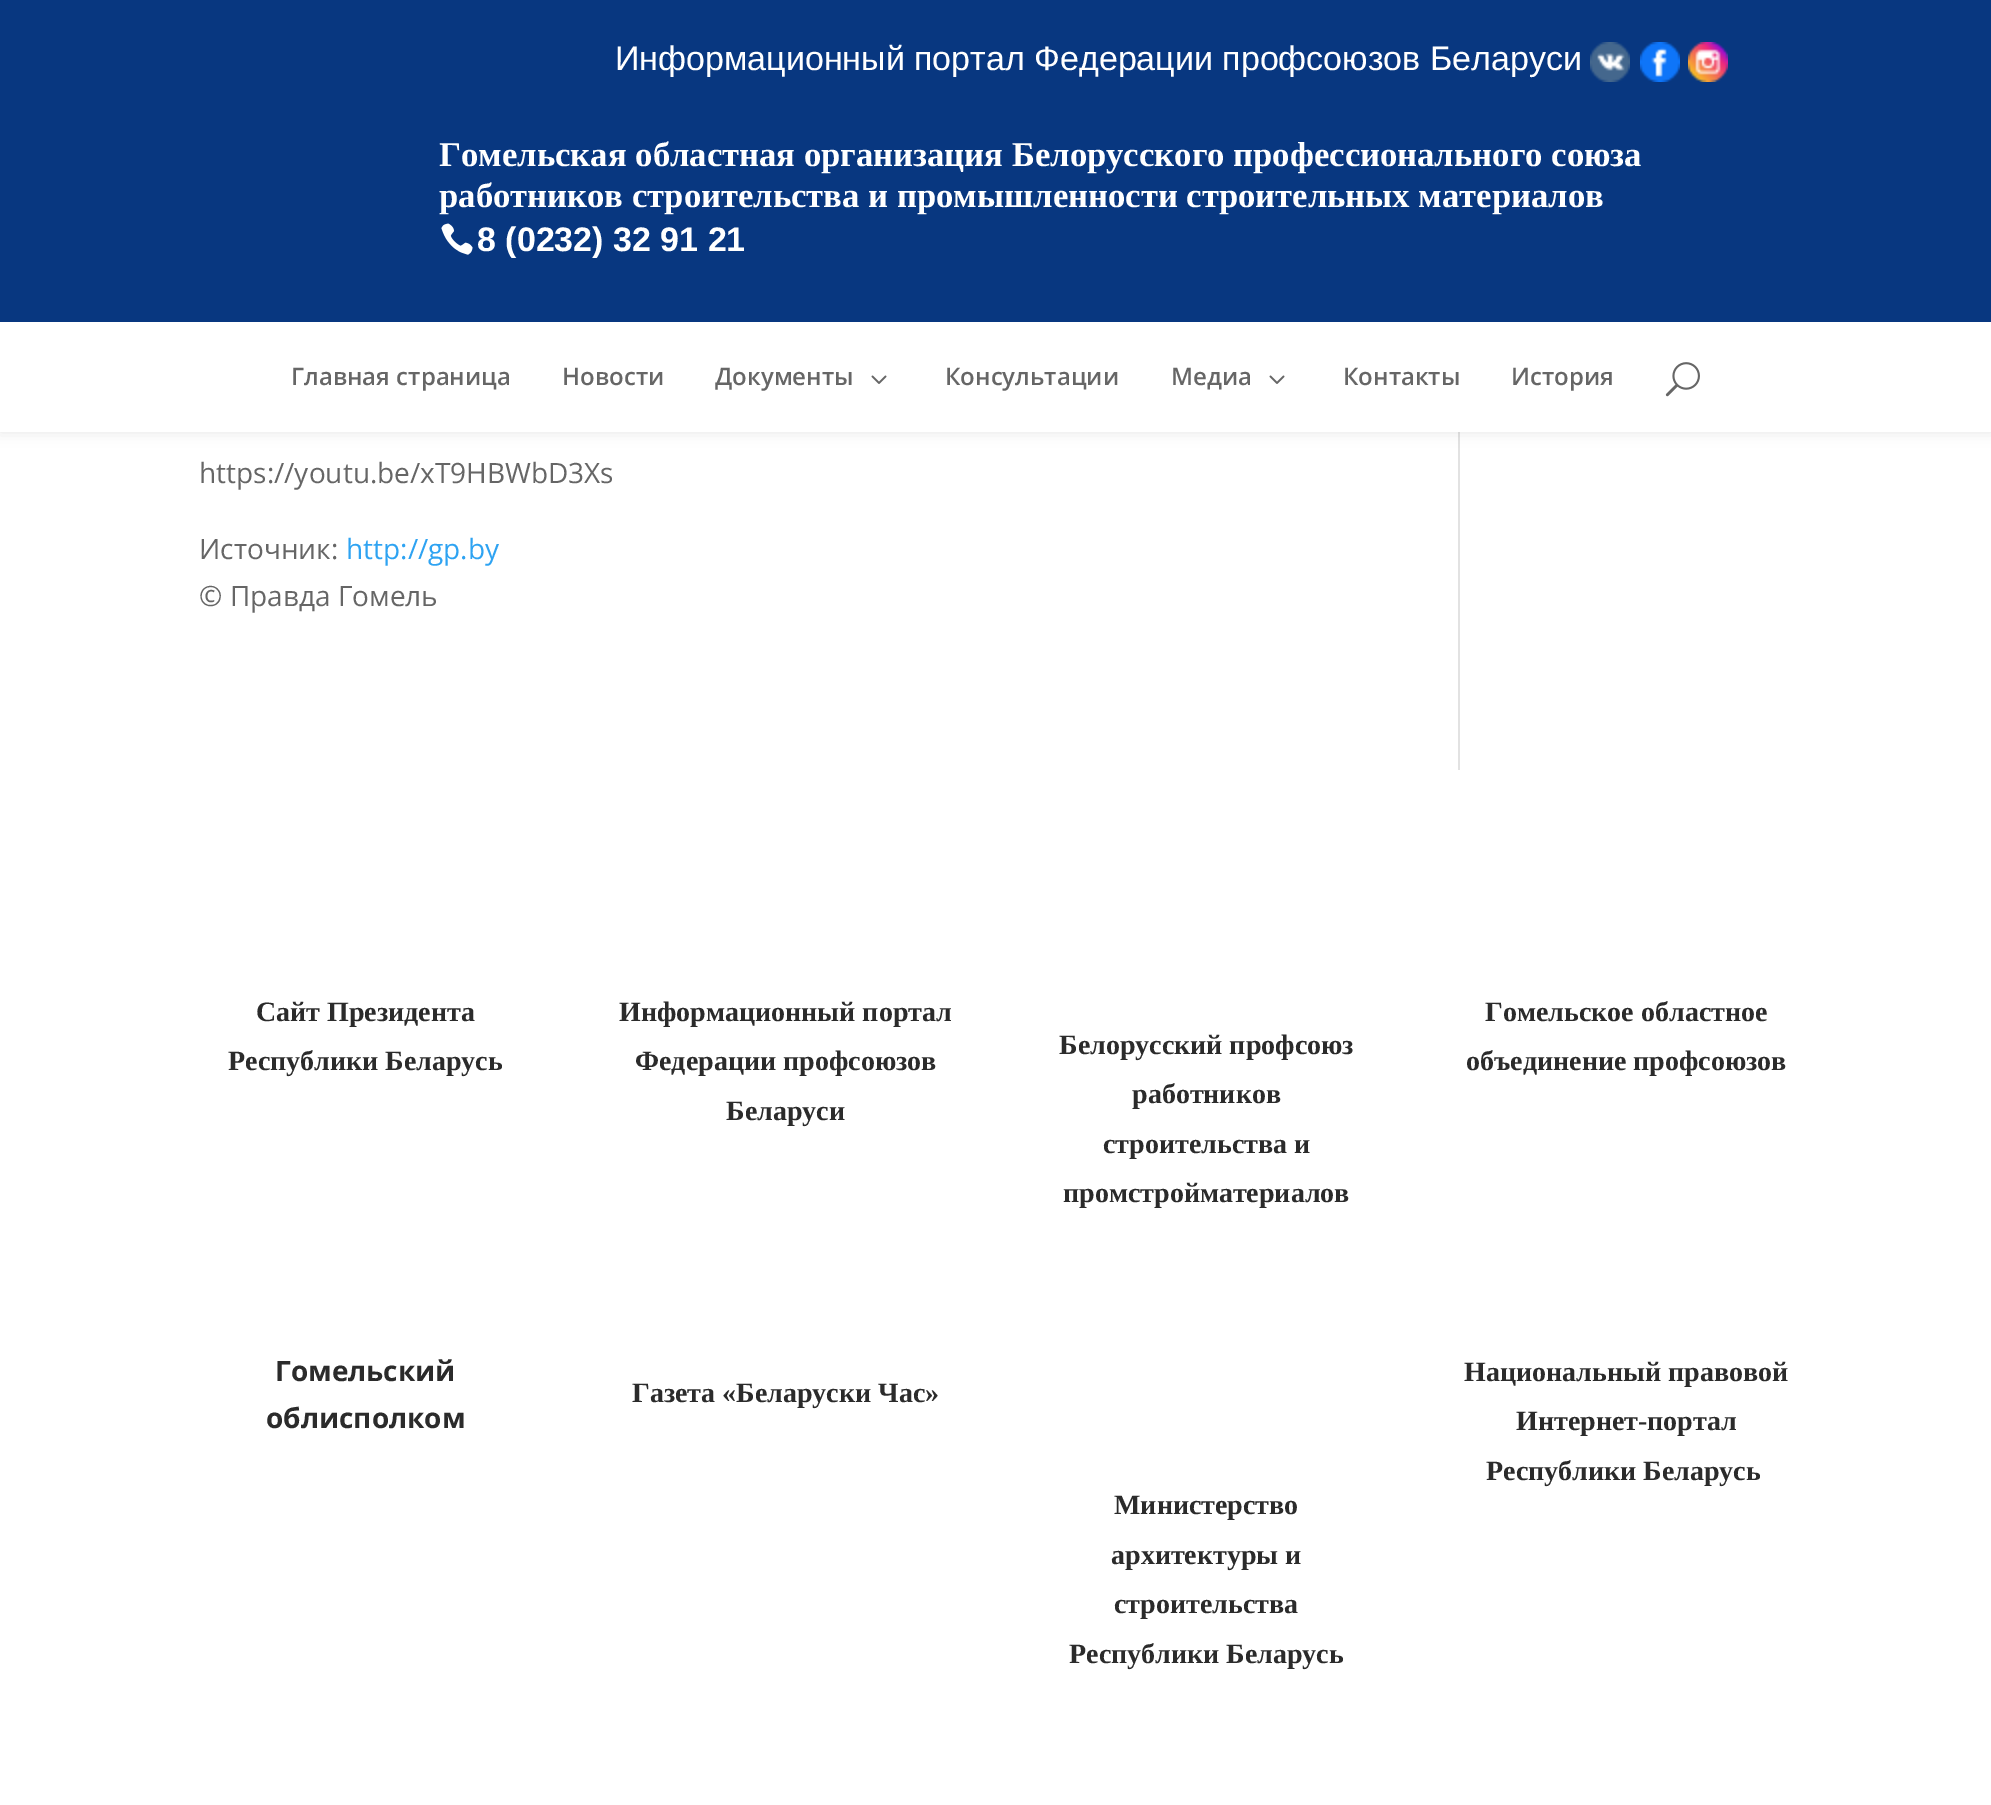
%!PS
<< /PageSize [1991 1805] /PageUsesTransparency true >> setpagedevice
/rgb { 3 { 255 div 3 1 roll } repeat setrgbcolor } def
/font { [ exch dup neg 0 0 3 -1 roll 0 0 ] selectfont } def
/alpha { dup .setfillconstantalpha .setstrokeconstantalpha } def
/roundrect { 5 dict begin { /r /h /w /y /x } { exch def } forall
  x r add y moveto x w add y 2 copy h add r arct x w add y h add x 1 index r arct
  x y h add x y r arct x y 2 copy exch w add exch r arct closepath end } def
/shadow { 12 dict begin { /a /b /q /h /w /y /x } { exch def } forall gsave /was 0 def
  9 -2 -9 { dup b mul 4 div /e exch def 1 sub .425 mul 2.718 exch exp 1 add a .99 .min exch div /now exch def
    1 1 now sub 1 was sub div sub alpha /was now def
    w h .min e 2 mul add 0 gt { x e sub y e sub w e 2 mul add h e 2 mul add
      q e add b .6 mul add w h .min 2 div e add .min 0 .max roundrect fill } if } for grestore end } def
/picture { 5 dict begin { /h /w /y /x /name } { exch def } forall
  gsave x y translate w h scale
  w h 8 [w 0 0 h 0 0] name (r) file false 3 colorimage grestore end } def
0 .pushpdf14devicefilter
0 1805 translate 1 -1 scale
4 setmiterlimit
255 255 255 rgb
0 0 1991 1805 rectfill
226 226 226 rgb
1458 432 2 338 rectfill
0 0 0 rgb
0 322 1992 110 0 7 0.1 shadow
8 55 128 rgb
0 0 1991 322 rectfill
(img/1.rgb) 1590 42 40 40 picture
(img/2.rgb) 1640 42 40 40 picture
(img/3.rgb) 1688 42 40 40 picture
(img/4.rgb) 441 223 32 32 picture
255 255 255 rgb
0 322 1991 110 rectfill
(img/5.rgb) 871 375 16 9 picture
(img/5.rgb) 1269 375 16 9 picture
(img/6.rgb) 1665 362 35 35 picture
/LiberationSans-Regular 34 font
615 70 moveto (Информационный портал Федерации профсоюзов Беларуси) show
/LiberationSerif-Bold 34.65 font
439 166 moveto (Гомельская областная организация Белорусского профессионального союза) show
439 207 moveto (работников строительства и промышленности строительных материалов) show
/LiberationSans-Bold 34 font
477 251 moveto (8 \(0232\) 32 91 21) show
/OpenSans-SemiBold 24 font
102 102 102 rgb
[
  [(Главная страница) 291 385]
  [(Новости) 562 385]
  [(Документы) 715 385]
  [(Консультации) 945 385]
  [(Медиа) 1171 385]
  [(Контакты) 1343 385]
  [(История) 1511 385]
] { aload pop moveto show } forall
/OpenSans-Regular 28 font
199 483 moveto (https://youtu.be/xT9HBWbD3Xs) show
199 559 moveto (Источник:) show
46 163 242 rgb
346 559 moveto (http://gp.by) show
102 102 102 rgb
199 606 moveto (© Правда Гомель) show
/LiberationSerif-Bold 28 font
43 43 43 rgb
256 1021 moveto (Сайт Президента) show
228 1070 moveto (Республики Беларусь) show
/OpenSans-Bold 28 font
275 1381 moveto (Гомельский) show
266 1428 moveto (облисполком) show
/LiberationSerif-Bold 28 font
[
  [(Информационный портал) 619 1021]
  [(Федерации профсоюзов) 635 1070]
  [(Беларуси) 726 1120]
  [(Газета «Беларуски Час») 632 1402]
  [(Белорусский профсоюз) 1059 1054]
  [(работников) 1132 1103]
  [(строительства и) 1103 1153]
  [(промстройматериалов) 1063 1202]
  [(Министерство) 1114 1514]
  [(архитектуры и) 1111 1564]
  [(строительства) 1114 1613]
  [(Республики Беларусь) 1069 1663]
  [(Гомельское областное) 1485 1021]
  [(объединение профсоюзов) 1466 1070]
  [(Национальный правовой) 1464 1381]
  [(Интернет-портал) 1516 1430]
  [(Республики Беларусь) 1486 1480]
] { aload pop moveto show } forall
.poppdf14devicefilter showpage
